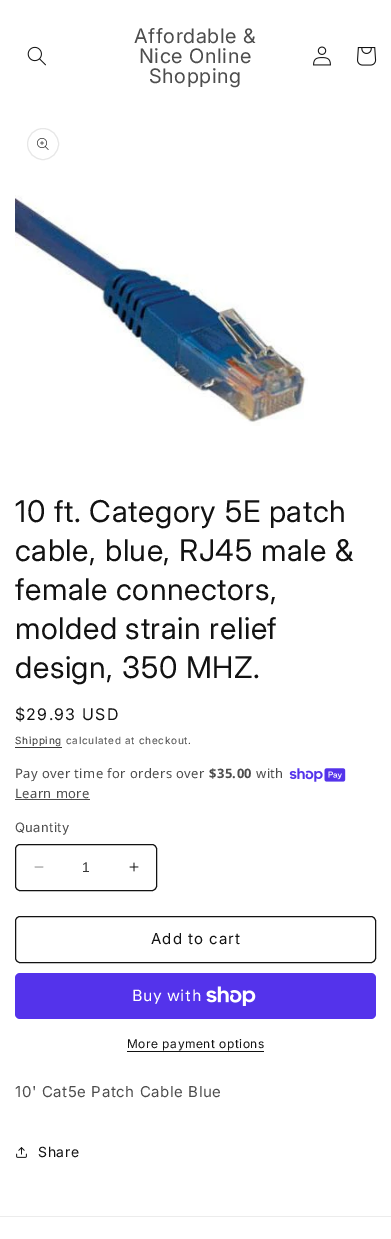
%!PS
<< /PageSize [391 1239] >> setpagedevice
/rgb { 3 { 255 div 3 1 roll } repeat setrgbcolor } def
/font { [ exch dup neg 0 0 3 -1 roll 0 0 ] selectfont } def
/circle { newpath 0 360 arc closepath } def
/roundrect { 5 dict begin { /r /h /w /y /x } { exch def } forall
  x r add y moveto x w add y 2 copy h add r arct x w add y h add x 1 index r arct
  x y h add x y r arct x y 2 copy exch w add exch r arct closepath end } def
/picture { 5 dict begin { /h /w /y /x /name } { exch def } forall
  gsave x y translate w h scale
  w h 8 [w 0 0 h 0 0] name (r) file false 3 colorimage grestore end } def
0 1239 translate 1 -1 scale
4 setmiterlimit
255 255 255 rgb
0 0 391 1239 rectfill
(img/1.rgb) 27 46 19 20 picture
(img/2.rgb) 313 46 18 20 picture
(img/3.rgb) 357 47 20 19 picture
231 231 231 rgb
43 144 15.5 circle stroke
(img/4.rgb) 37 138 12 12 picture
(img/5.rgb) 15 195 293 231 picture
54 54 54 rgb
15 747 47 1 rectfill
(img/6.rgb) 289 768 57 14 picture
77 77 77 rgb
15 799 75 1 rectfill
(img/7.rgb) 34 866 10 2 picture
(img/8.rgb) 129 862 10 10 picture
18 18 18 rgb
15.5 844.5 141 46 4.5 roundrect stroke
15.5 916.5 360 46 4.5 roundrect stroke
84 51 235 rgb
15 973 361 46 5 roundrect fill
(img/9.rgb) 206 986 50 20 picture
18 18 18 rgb
127 1051 137 1 rectfill
(img/10.rgb) 16 1147 11 11 picture
236 236 236 rgb
0 1216 391 1 rectfill
/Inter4-Regular 20 font
77 77 77 rgb
134 43 moveto 0.6 0 (Affordable &) ashow
139 63 moveto 0.6 0 (Nice Online) ashow
149 83 moveto 0.6 0 (Shopping) ashow
/Inter-Regular 30 font
18 18 18 rgb
15 522 moveto 0.6 0 (10 ft. Category 5E patch) ashow
15 561 moveto 0.6 0 (cable, blue, RJ45 male &) ashow
15 600 moveto 0.6 0 (female connectors,) ashow
15 639 moveto 0.6 0 (molded strain relief) ashow
15 678 moveto 0.6 0 (design, 350 MHZ.) ashow
/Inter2-Regular 16 font
15 720 moveto 1.25 0 ($29.93 USD) ashow
/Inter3-Regular 10 font
54 54 54 rgb
15 744 moveto 0.7 0 (Shipping) ashow
77 77 77 rgb
66 744 moveto 0.7 0 (calculated at checkout.) ashow
/NotoSans-Regular 13 font
15 778 moveto 0.4 0 (Pay over time for orders over) ashow
/NotoSans-Bold 13 font
209 778 moveto 0.4 0 ($35.00) ashow
/NotoSans-Regular 13 font
256 778 moveto 0.4 0 (with) ashow
15 798 moveto 0.4 0 (Learn more) ashow
/Inter3-Regular 13 font
15 832 moveto 0.4 0 (Quantity) ashow
/LiberationSans-Regular 14 font
54 54 54 rgb
82 872 moveto (1) show
/Inter3-Regular 15 font
18 18 18 rgb
151 944 moveto 1 0 (Add to cart) ashow
/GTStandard-Regular 16 font
255 255 255 rgb
132 1001 moveto 0.6 0 (Buy with) ashow
/Inter3-Regular 12 font
18 18 18 rgb
127 1048 moveto 0.5 0 (More payment options) ashow
/Inter3-Regular 15 font
77 77 77 rgb
15 1097 moveto 0.6 0 (10' Cat5e Patch Cable Blue) ashow
/Inter3-Regular 14 font
18 18 18 rgb
38 1157 moveto 0.6 0 (Share) ashow
showpage
